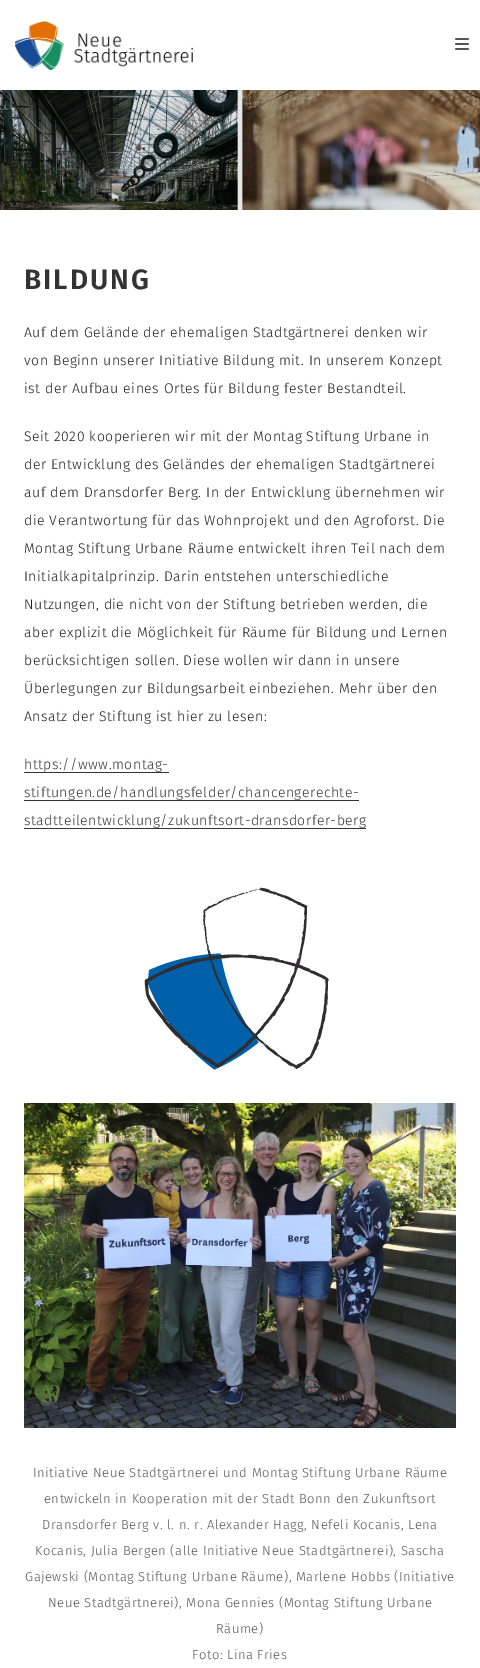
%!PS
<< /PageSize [480 1668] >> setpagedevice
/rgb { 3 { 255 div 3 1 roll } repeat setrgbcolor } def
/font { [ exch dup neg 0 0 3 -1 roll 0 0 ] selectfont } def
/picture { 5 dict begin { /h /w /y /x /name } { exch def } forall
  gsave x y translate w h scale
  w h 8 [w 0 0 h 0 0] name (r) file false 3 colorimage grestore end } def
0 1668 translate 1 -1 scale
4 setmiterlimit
255 255 255 rgb
0 0 480 1668 rectfill
(img/1.rgb) 14 21 179 49 picture
(img/2.rgb) 455 38 14 12 picture
(img/3.rgb) 0 90 480 120 picture
[
  [24 772 145 1 51 51 51]
  [24 800 335 1 51 51 51]
  [24 828 342 1 51 51 51]
] { aload pop rgb rectfill } forall
(img/4.rgb) 144 887 185 183 picture
(img/5.rgb) 24 1103 432 325 picture
/FiraSans-SemiBold 28 font
24 289 moveto 2 0 (BILDUNG) ashow
/FiraSans-Light 14 font
30 30 30 rgb
24 337 moveto 0.5 0 (Auf dem Gelände der ehemaligen Stadtgärtnerei denken wir) ashow
24 365 moveto 0.5 0 (von Beginn unserer Initiative Bildung mit. In unserem Konzept) ashow
24 393 moveto 0.5 0 (ist der Aufbau eines Ortes für Bildung fester Bestandteil.) ashow
24 441 moveto 0.5 0 (Seit 2020 kooperieren wir mit der Montag Stiftung Urbane in) ashow
24 469 moveto 0.5 0 (der Entwicklung des Geländes der ehemaligen Stadtgärtnerei) ashow
24 497 moveto 0.5 0 (auf dem Dransdorfer Berg. In der Entwicklung übernehmen wir) ashow
24 525 moveto 0.5 0 (die Verantwortung für das Wohnprojekt und den Agroforst. Die) ashow
24 553 moveto 0.5 0 (Montag Stiftung Urbane Räume entwickelt ihren Teil nach dem) ashow
24 581 moveto 0.5 0 (Initialkapitalprinzip. Darin entstehen unterschiedliche) ashow
24 609 moveto 0.5 0 (Nutzungen, die nicht von der Stiftung betrieben werden, die) ashow
24 637 moveto 0.5 0 (aber explizit die Möglichkeit für Räume für Bildung und Lernen) ashow
24 665 moveto 0.5 0 (berücksichtigen sollen. Diese wollen wir dann in unsere) ashow
24 693 moveto 0.5 0 (Überlegungen zur Bildungsarbeit einbeziehen. Mehr über den) ashow
24 721 moveto 0.5 0 (Ansatz der Stiftung ist hier zu lesen:) ashow
51 51 51 rgb
24 769 moveto 0.5 0 (https://www.montag-) ashow
24 797 moveto 0.5 0 (stiftungen.de/handlungsfelder/chancengerechte-) ashow
24 825 moveto 0.5 0 (stadtteilentwicklung/zukunftsort-dransdorfer-berg) ashow
/FiraSans-Light 13 font
85 85 85 rgb
33 1477 moveto 0.5 0 (Initiative Neue Stadtgärtnerei und Montag Stiftung Urbane Räume) ashow
44 1503 moveto 0.5 0 (entwickeln in Kooperation mit der Stadt Bonn den Zukunftsort) ashow
42 1529 moveto 0.5 0 (Dransdorfer Berg v. l. n. r. Alexander Hagg, Nefeli Kocanis, Lena) ashow
35 1555 moveto 0.5 0 (Kocanis, Julia Bergen \(alle Initiative Neue Stadtgärtnerei\), Sascha) ashow
25 1581 moveto 0.5 0 (Gajewski \(Montag Stiftung Urbane Räume\), Marlene Hobbs \(Initiative) ashow
48 1607 moveto 0.5 0 (Neue Stadtgärtnerei\), Mona Gennies \(Montag Stiftung Urbane) ashow
216 1633 moveto 0.5 0 (Räume\)) ashow
192 1659 moveto 0.5 0 (Foto: Lina Fries) ashow
showpage
